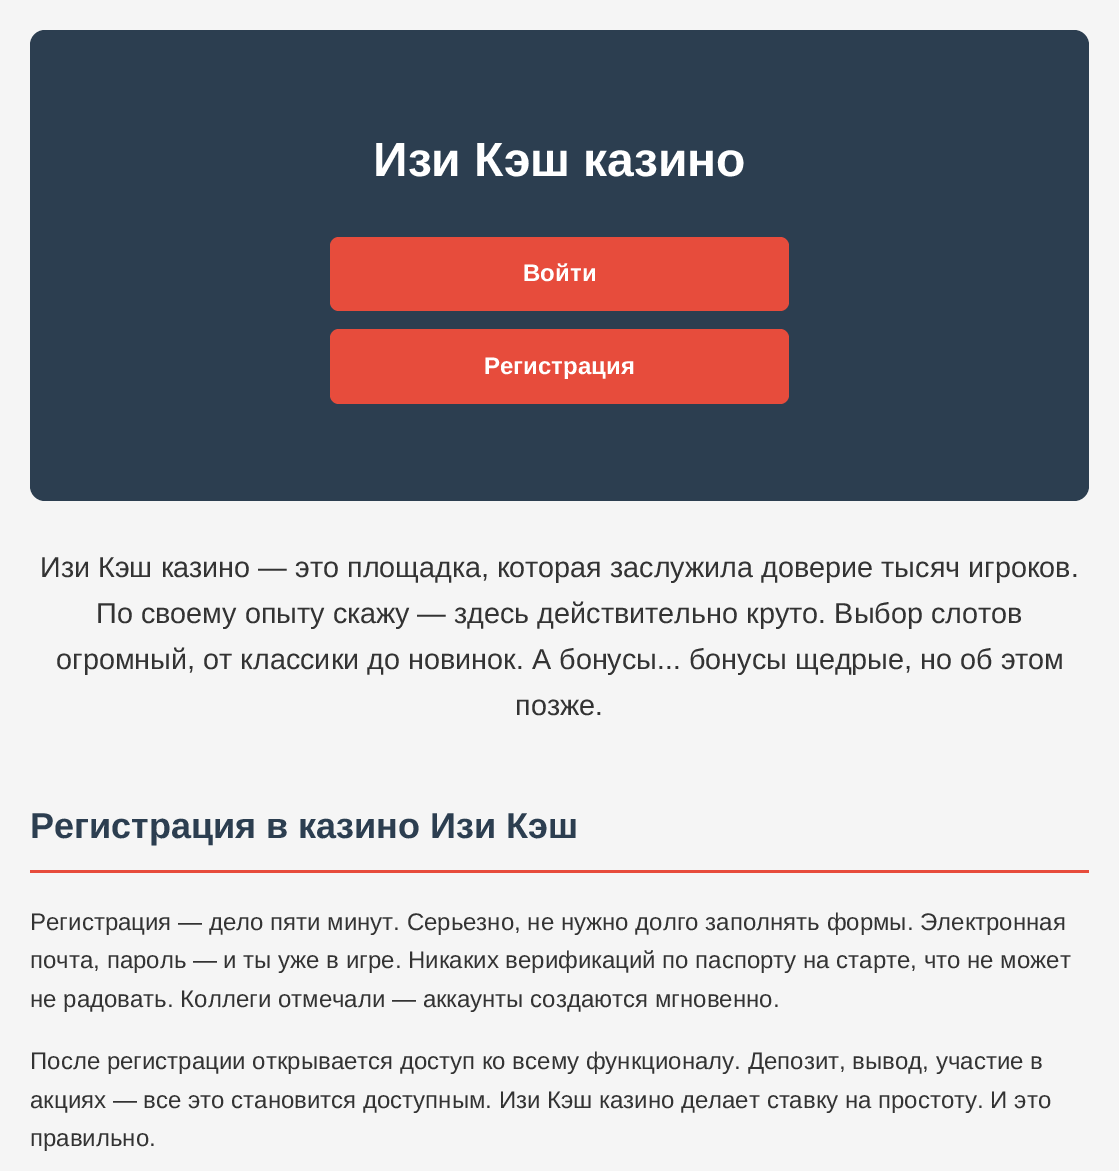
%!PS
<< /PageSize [1119 1171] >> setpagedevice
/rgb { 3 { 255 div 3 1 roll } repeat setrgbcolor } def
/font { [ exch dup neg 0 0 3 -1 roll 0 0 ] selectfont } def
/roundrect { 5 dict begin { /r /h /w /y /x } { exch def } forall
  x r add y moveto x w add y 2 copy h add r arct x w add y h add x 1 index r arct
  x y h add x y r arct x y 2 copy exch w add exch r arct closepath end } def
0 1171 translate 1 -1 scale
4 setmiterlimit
245 245 245 rgb
0 0 1119 1171 rectfill
44 62 80 rgb
30 30 1059 471 15 roundrect fill
231 76 60 rgb
330 237 459 74 9 roundrect fill
330 329 459 75 9 roundrect fill
30 870 1059 3 rectfill
/LiberationSans-Bold 48 font
255 255 255 rgb
373 176 moveto (Изи Кэш казино) show
/LiberationSans-Bold 24 font
523 281 moveto (Войти) show
484 374 moveto (Регистрация) show
/LiberationSans-Regular 28.8 font
51 51 51 rgb
[
  [(Изи Кэш казино — это площадка, которая заслужила доверие тысяч игроков.) 40 577]
  [(По своему опыту скажу — здесь действительно круто. Выбор слотов) 96 623]
  [(огромный, от классики до новинок. А бонусы... бонусы щедрые, но об этом) 56 669]
  [(позже.) 515 715]
] { aload pop moveto show } forall
/LiberationSans-Bold 36 font
44 62 80 rgb
30 838 moveto (Регистрация в казино Изи Кэш) show
/LiberationSans-Regular 24 font
51 51 51 rgb
[
  [(Регистрация — дело пяти минут. Серьезно, не нужно долго заполнять формы. Электронная) 30 930]
  [(почта, пароль — и ты уже в игре. Никаких верификаций по паспорту на старте, что не может) 30 968]
  [(не радовать. Коллеги отмечали — аккаунты создаются мгновенно.) 30 1007]
  [(После регистрации открывается доступ ко всему функционалу. Депозит, вывод, участие в) 30 1069]
  [(акциях — все это становится доступным. Изи Кэш казино делает ставку на простоту. И это) 30 1108]
  [(правильно.) 30 1146]
] { aload pop moveto show } forall
showpage
